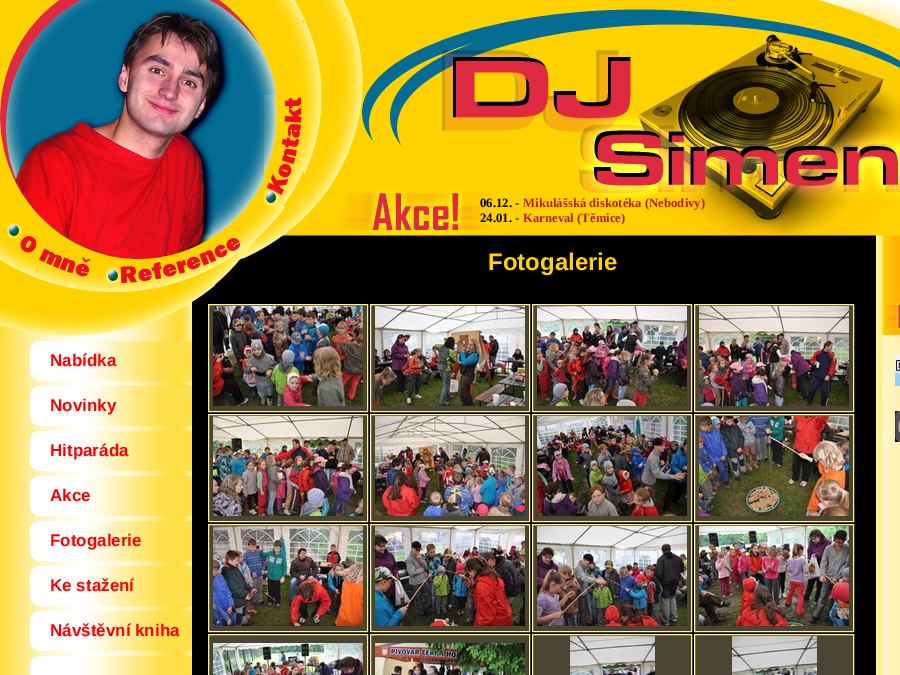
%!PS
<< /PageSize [900 675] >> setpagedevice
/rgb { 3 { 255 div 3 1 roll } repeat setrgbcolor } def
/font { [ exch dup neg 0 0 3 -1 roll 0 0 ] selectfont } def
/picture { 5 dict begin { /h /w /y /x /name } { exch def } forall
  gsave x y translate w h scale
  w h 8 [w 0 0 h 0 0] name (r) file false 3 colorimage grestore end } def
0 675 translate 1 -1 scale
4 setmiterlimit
255 255 255 rgb
0 0 900 675 rectfill
(img/1.rgb) 0 302 900 373 picture
(img/2.rgb) 0 0 900 302 picture
(img/3.rgb) 264 95 40 111 picture
(img/4.rgb) 7 223 84 54 picture
(img/5.rgb) 106 235 137 50 picture
(img/6.rgb) 0 302 190 34 picture
(img/7.rgb) 30 341 162 40 picture
(img/7.rgb) 30 386 162 40 picture
(img/7.rgb) 30 431 162 40 picture
(img/7.rgb) 30 476 162 40 picture
(img/7.rgb) 30 521 162 40 picture
(img/7.rgb) 30 566 162 40 picture
(img/7.rgb) 30 611 162 40 picture
(img/8.rgb) 30 656 162 19 picture
74 68 51 rgb
208.5 304.5 moveto 367.5 304.5 lineto 367.5 411.5 lineto 208.5 411.5 lineto closepath gsave fill grestore
255 242 145 rgb
stroke
(img/9.rgb) 213 306 150 100 picture
74 68 51 rgb
370.5 304.5 moveto 529.5 304.5 lineto 529.5 411.5 lineto 370.5 411.5 lineto closepath gsave fill grestore
255 242 145 rgb
stroke
(img/10.rgb) 375 306 150 100 picture
74 68 51 rgb
532.5 304.5 moveto 691.5 304.5 lineto 691.5 411.5 lineto 532.5 411.5 lineto closepath gsave fill grestore
255 242 145 rgb
stroke
(img/11.rgb) 537 306 150 100 picture
74 68 51 rgb
694.5 304.5 moveto 853.5 304.5 lineto 853.5 411.5 lineto 694.5 411.5 lineto closepath gsave fill grestore
255 242 145 rgb
stroke
(img/12.rgb) 699 306 150 100 picture
74 68 51 rgb
208.5 414.5 moveto 367.5 414.5 lineto 367.5 521.5 lineto 208.5 521.5 lineto closepath gsave fill grestore
255 242 145 rgb
stroke
(img/13.rgb) 213 416 150 100 picture
74 68 51 rgb
370.5 414.5 moveto 529.5 414.5 lineto 529.5 521.5 lineto 370.5 521.5 lineto closepath gsave fill grestore
255 242 145 rgb
stroke
(img/14.rgb) 375 416 150 100 picture
74 68 51 rgb
532.5 414.5 moveto 691.5 414.5 lineto 691.5 521.5 lineto 532.5 521.5 lineto closepath gsave fill grestore
255 242 145 rgb
stroke
(img/15.rgb) 537 416 150 100 picture
74 68 51 rgb
694.5 414.5 moveto 853.5 414.5 lineto 853.5 521.5 lineto 694.5 521.5 lineto closepath gsave fill grestore
255 242 145 rgb
stroke
(img/16.rgb) 699 416 150 100 picture
74 68 51 rgb
208.5 524.5 moveto 367.5 524.5 lineto 367.5 631.5 lineto 208.5 631.5 lineto closepath gsave fill grestore
255 242 145 rgb
stroke
(img/17.rgb) 213 526 150 100 picture
74 68 51 rgb
370.5 524.5 moveto 529.5 524.5 lineto 529.5 631.5 lineto 370.5 631.5 lineto closepath gsave fill grestore
255 242 145 rgb
stroke
(img/18.rgb) 375 526 150 100 picture
74 68 51 rgb
532.5 524.5 moveto 691.5 524.5 lineto 691.5 631.5 lineto 532.5 631.5 lineto closepath gsave fill grestore
255 242 145 rgb
stroke
(img/19.rgb) 537 526 150 100 picture
74 68 51 rgb
694.5 524.5 moveto 853.5 524.5 lineto 853.5 631.5 lineto 694.5 631.5 lineto closepath gsave fill grestore
255 242 145 rgb
stroke
(img/20.rgb) 699 526 150 100 picture
74 68 51 rgb
208.5 634.5 moveto 367.5 634.5 lineto 367.5 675.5 lineto 208.5 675.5 lineto closepath gsave fill grestore
255 242 145 rgb
stroke
(img/21.rgb) 213 643 150 32 picture
74 68 51 rgb
370.5 634.5 moveto 529.5 634.5 lineto 529.5 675.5 lineto 370.5 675.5 lineto closepath gsave fill grestore
255 242 145 rgb
stroke
(img/22.rgb) 375 643 150 32 picture
74 68 51 rgb
532.5 634.5 moveto 691.5 634.5 lineto 691.5 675.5 lineto 532.5 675.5 lineto closepath gsave fill grestore
255 242 145 rgb
stroke
(img/23.rgb) 570 636 85 39 picture
74 68 51 rgb
694.5 634.5 moveto 853.5 634.5 lineto 853.5 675.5 lineto 694.5 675.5 lineto closepath gsave fill grestore
255 242 145 rgb
stroke
(img/24.rgb) 732 636 85 39 picture
(img/25.rgb) 883 302 17 28 picture
(img/26.rgb) 882 335 18 10 picture
(img/27.rgb) 882 345 18 330 picture
(img/28.rgb) 895 355 5 31 picture
(img/29.rgb) 895 411 5 31 picture
/LiberationSerif-Bold 12.75 font
0 0 0 rgb
480 207 moveto (06.12.) show
/LiberationSerif-Regular 12.75 font
515 207 moveto (-) show
/LiberationSerif-Bold 12.75 font
184 27 47 rgb
523 207 moveto (Mikulášská diskotéka \(Nebodivy\)) show
0 0 0 rgb
480 222 moveto (24.01.) show
/LiberationSerif-Regular 12.75 font
515 222 moveto (-) show
/LiberationSerif-Bold 12.75 font
184 27 47 rgb
523 222 moveto (Karneval \(Těmice\)) show
/LiberationSans-Bold 24 font
255 210 0 rgb
488 270 moveto (Fotogalerie) show
/LiberationSans-Bold 17 font
255 0 0 rgb
[
  [(Nabídka) 50 366]
  [(Novinky) 50 411]
  [(Hitparáda) 50 456]
  [(Akce) 50 501]
  [(Fotogalerie) 50 546]
  [(Ke stažení) 50 591]
  [(Návštěvní kniha) 50 636]
] { aload pop moveto show } forall
showpage
